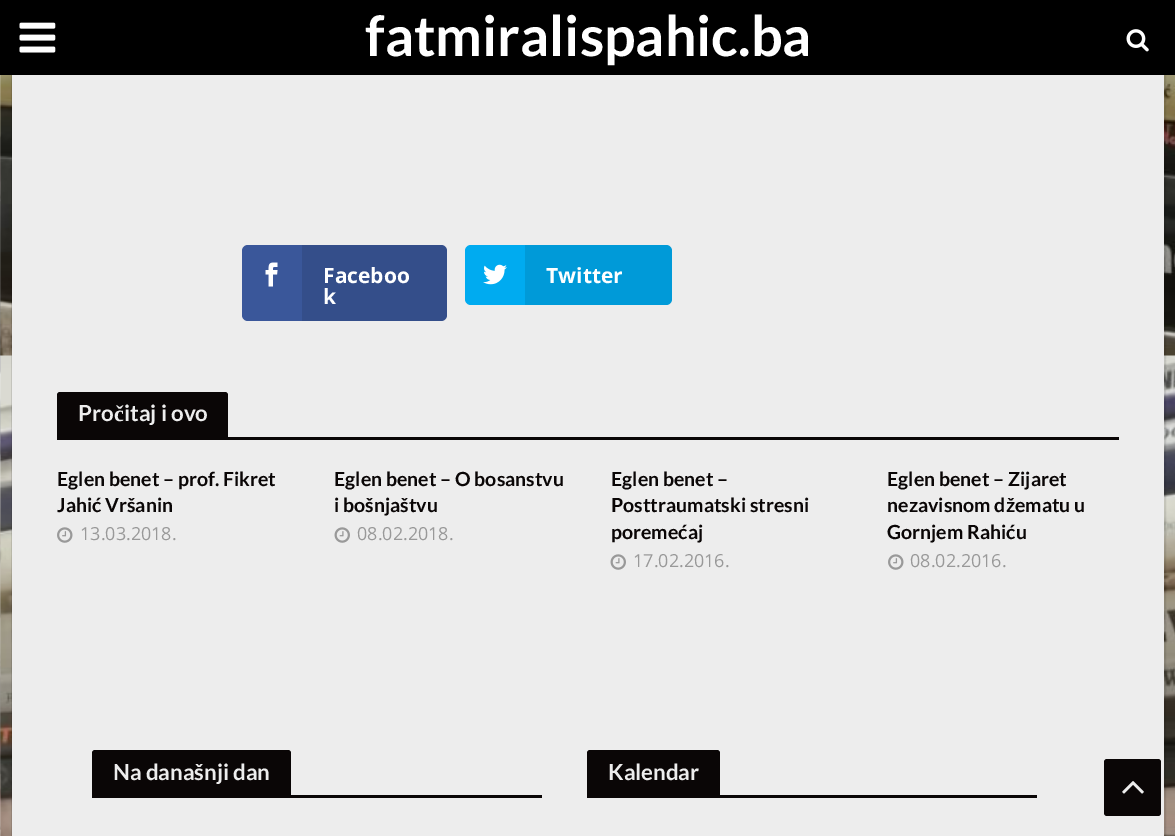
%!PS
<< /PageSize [1175 836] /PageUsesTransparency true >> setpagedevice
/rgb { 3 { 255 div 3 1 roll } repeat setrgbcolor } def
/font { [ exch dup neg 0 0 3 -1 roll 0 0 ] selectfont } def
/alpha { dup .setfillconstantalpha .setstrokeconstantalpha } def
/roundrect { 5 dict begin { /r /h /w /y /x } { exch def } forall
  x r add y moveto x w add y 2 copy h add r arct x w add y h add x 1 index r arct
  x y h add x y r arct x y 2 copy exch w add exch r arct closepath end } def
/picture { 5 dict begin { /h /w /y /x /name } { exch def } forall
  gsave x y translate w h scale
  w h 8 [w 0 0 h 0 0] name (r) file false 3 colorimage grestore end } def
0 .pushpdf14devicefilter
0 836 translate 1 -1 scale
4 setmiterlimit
255 255 255 rgb
0 0 1175 836 rectfill
(img/1.rgb) 0 75 1175 761 picture
0.1 alpha
0 0 0 rgb
2 setlinewidth
12 -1 1153 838 rectstroke
1 alpha
0 0 1175 75 rectfill
(img/2.rgb) 19 22 37 31 picture
(img/3.rgb) 1126 29 23 23 picture
0.15 alpha
255 255 255 rgb
0 75 1 761 rectfill
1 alpha
237 237 237 rgb
12 75 1152 761 rectfill
58 87 154 rgb
242 245 205 76 6 roundrect fill
(img/4.rgb) 265 262 13 25 picture
0.1 alpha
0 0 0 rgb
302 245 moveto 441 245 lineto 444.5 245 447 247.5 447 251 curveto 447 315 lineto 447 318.5 444.5 321 441 321 curveto 302 321 lineto closepath fill
1 alpha
0 171 240 rgb
465 245 207 60 6 roundrect fill
(img/5.rgb) 483 264 24 21 picture
0.1 alpha
0 0 0 rgb
525 245 moveto 666 245 lineto 669.5 245 672 247.5 672 251 curveto 672 299 lineto 672 302.5 669.5 305 666 305 curveto 525 305 lineto closepath fill
1 alpha
10 6 6 rgb
60 392 moveto 225 392 lineto 226.5 392 228 393.5 228 395 curveto 228 437 lineto 57 437 lineto 57 395 lineto 57 393.5 58.5 392 60 392 curveto closepath fill
57 437 1062 3 rectfill
(img/6.rgb) 57 527 16 16 picture
(img/7.rgb) 334 527 16 16 picture
(img/7.rgb) 610 554 16 16 picture
(img/6.rgb) 888 554 16 16 picture
95 750 moveto 288 750 lineto 289.5 750 291 751.5 291 753 curveto 291 795 lineto 92 795 lineto 92 753 lineto 92 751.5 93.5 750 95 750 curveto closepath fill
92 795 450 3 rectfill
590 750 moveto 717 750 lineto 718.5 750 720 751.5 720 753 curveto 720 795 lineto 587 795 lineto 587 753 lineto 587 751.5 588.5 750 590 750 curveto closepath fill
587 795 450 3 rectfill
1104 759 57 57 3 roundrect fill
(img/8.rgb) 1122 781 22 13 picture
/Lato-Bold 55.75 font
255 255 255 rgb
365 56 moveto (fatmiralispahic.ba) show
/OpenSans-Bold 21 font
[
  [(Faceboo) 323 283]
  [(k) 323 304]
  [(Twitter) 546 283]
] { aload pop moveto show } forall
/Lato-Bold 22.25 font
237 237 237 rgb
78 421 moveto (Pro) show
/LiberationSerif-Bold 22.25 font
114 421 moveto (č) show
/Lato-Bold 22.25 font
124 421 moveto (itaj i ovo) show
/Lato-Bold 19.5 font
10 6 6 rgb
57 486 moveto (Eglen benet – prof. Fikret) show
57 512 moveto (Jahić Vršanin) show
/OpenSans-Regular 18 font
153 153 153 rgb
80 540 moveto (13.03.2018.) show
/Lato-Bold 19.5 font
10 6 6 rgb
334 486 moveto (Eglen benet – O bosanstvu) show
334 512 moveto (i bošnjaštvu) show
/OpenSans-Regular 18 font
153 153 153 rgb
357 540 moveto (08.02.2018.) show
/Lato-Bold 19.5 font
10 6 6 rgb
[
  [(Eglen benet –) 611 486]
  [(Posttraumatski stresni) 611 512]
  [(poremećaj) 611 539]
] { aload pop moveto show } forall
/OpenSans-Regular 18 font
153 153 153 rgb
633 567 moveto (17.02.2016.) show
/Lato-Bold 19.5 font
10 6 6 rgb
[
  [(Eglen benet – Zijaret) 887 486]
  [(nezavisnom džematu u) 887 512]
  [(Gornjem Rahiću) 887 539]
] { aload pop moveto show } forall
/OpenSans-Regular 18 font
153 153 153 rgb
910 567 moveto (08.02.2016.) show
/Lato-Bold 22.25 font
237 237 237 rgb
113 780 moveto (Na današnji dan) show
608 780 moveto (Kalendar) show
.poppdf14devicefilter showpage
